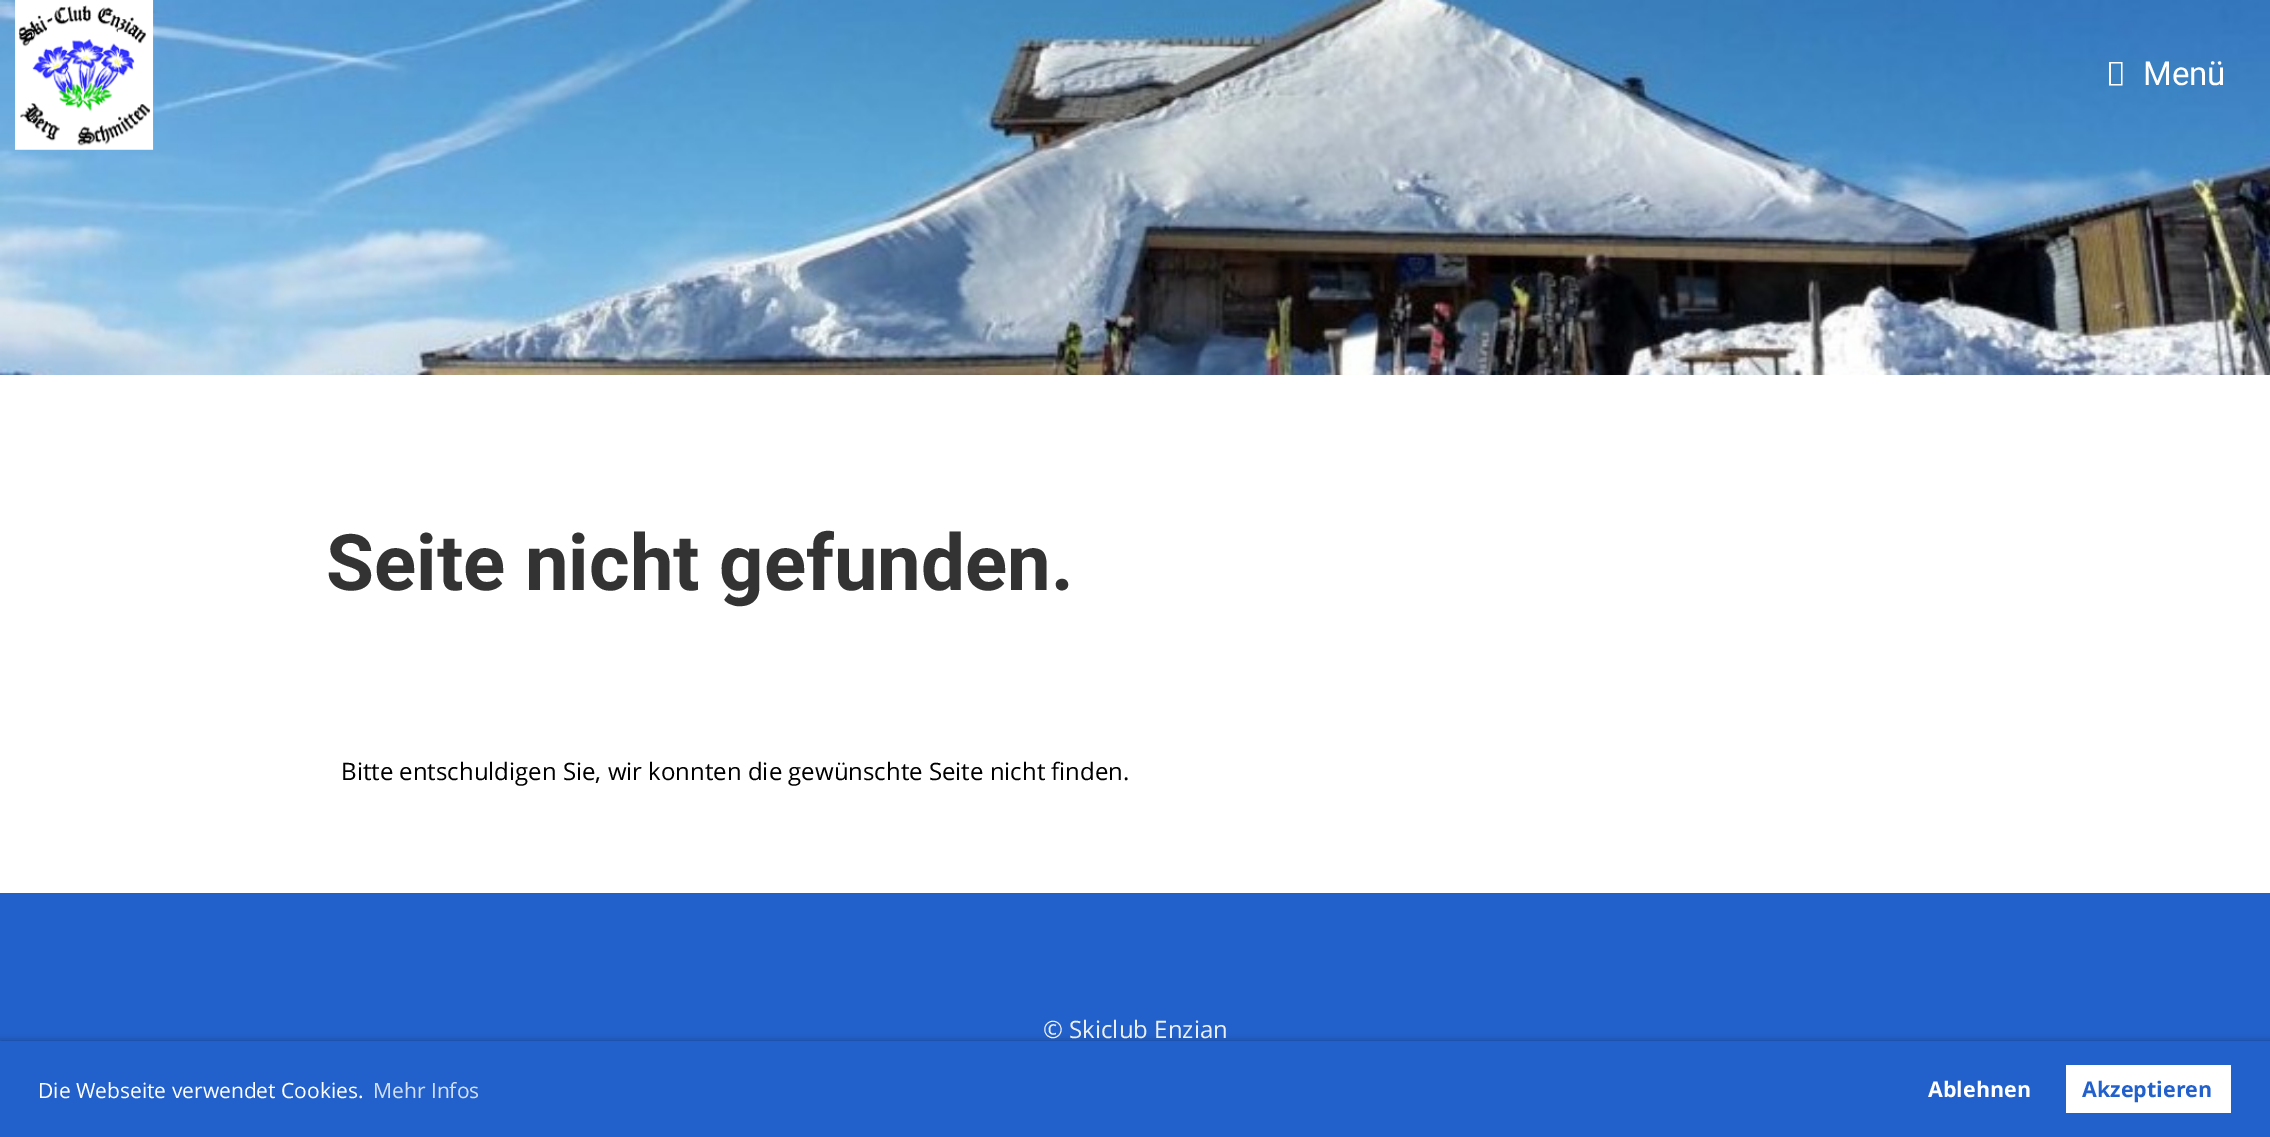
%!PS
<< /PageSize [2270 1137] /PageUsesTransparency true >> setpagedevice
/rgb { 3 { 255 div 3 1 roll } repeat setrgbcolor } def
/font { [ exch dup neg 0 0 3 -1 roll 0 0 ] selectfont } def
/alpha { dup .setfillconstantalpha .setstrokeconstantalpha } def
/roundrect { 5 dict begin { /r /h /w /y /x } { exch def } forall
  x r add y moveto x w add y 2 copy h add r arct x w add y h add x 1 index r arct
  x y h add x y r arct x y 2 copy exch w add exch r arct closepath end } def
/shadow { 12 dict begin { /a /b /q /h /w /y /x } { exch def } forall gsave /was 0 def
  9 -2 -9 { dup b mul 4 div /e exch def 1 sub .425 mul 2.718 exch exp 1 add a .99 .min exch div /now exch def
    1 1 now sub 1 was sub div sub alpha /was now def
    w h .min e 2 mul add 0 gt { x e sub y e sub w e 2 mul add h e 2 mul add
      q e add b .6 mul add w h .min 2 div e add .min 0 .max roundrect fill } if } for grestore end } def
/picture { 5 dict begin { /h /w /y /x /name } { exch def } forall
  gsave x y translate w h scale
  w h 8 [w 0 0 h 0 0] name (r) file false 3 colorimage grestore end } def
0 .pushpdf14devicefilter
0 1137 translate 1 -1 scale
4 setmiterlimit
255 255 255 rgb
0 0 2270 1137 rectfill
(img/2.rgb) 0 0 2270 375 picture
(img/1.rgb) 15 0 139 150 picture
2109 85.5 moveto 2109 62 lineto 2122.5 62 lineto 2122.5 85.5 lineto closepath 2111 84 moveto 2121 84 lineto 2121 63.5 lineto 2111 63.5 lineto closepath fill
34 97 204 rgb
0 893 2270 148 rectfill
0 0 0 rgb
0 1041 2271 96 0 4 0.3 shadow
34 97 204 rgb
0 1041 2270 96 rectfill
255 255 255 rgb
2066 1065 165 48 rectfill
/Roboto-Regular 33 font
2143 85 moveto (Menü) show
/Roboto-Bold 78 font
51 51 51 rgb
326 590 moveto (Seite nicht gefunden.) show
/OpenSans-Regular 24 font
0 0 0 rgb
341 780 moveto (Bitte entschuldigen Sie, wir konnten die gewünschte Seite nicht finden.) show
236 240 241 rgb
1043 1038 moveto (© Skiclub Enzian) show
/OpenSans-Regular 21 font
255 255 255 rgb
38 1098 moveto (Die Webseite verwendet Cookies.) show
211 223 245 rgb
373 1098 moveto (Mehr Infos) show
/OpenSans-Bold 21.5 font
255 255 255 rgb
1928 1097 moveto (Ablehnen) show
34 97 204 rgb
2082 1097 moveto (Akzeptieren) show
.poppdf14devicefilter showpage
